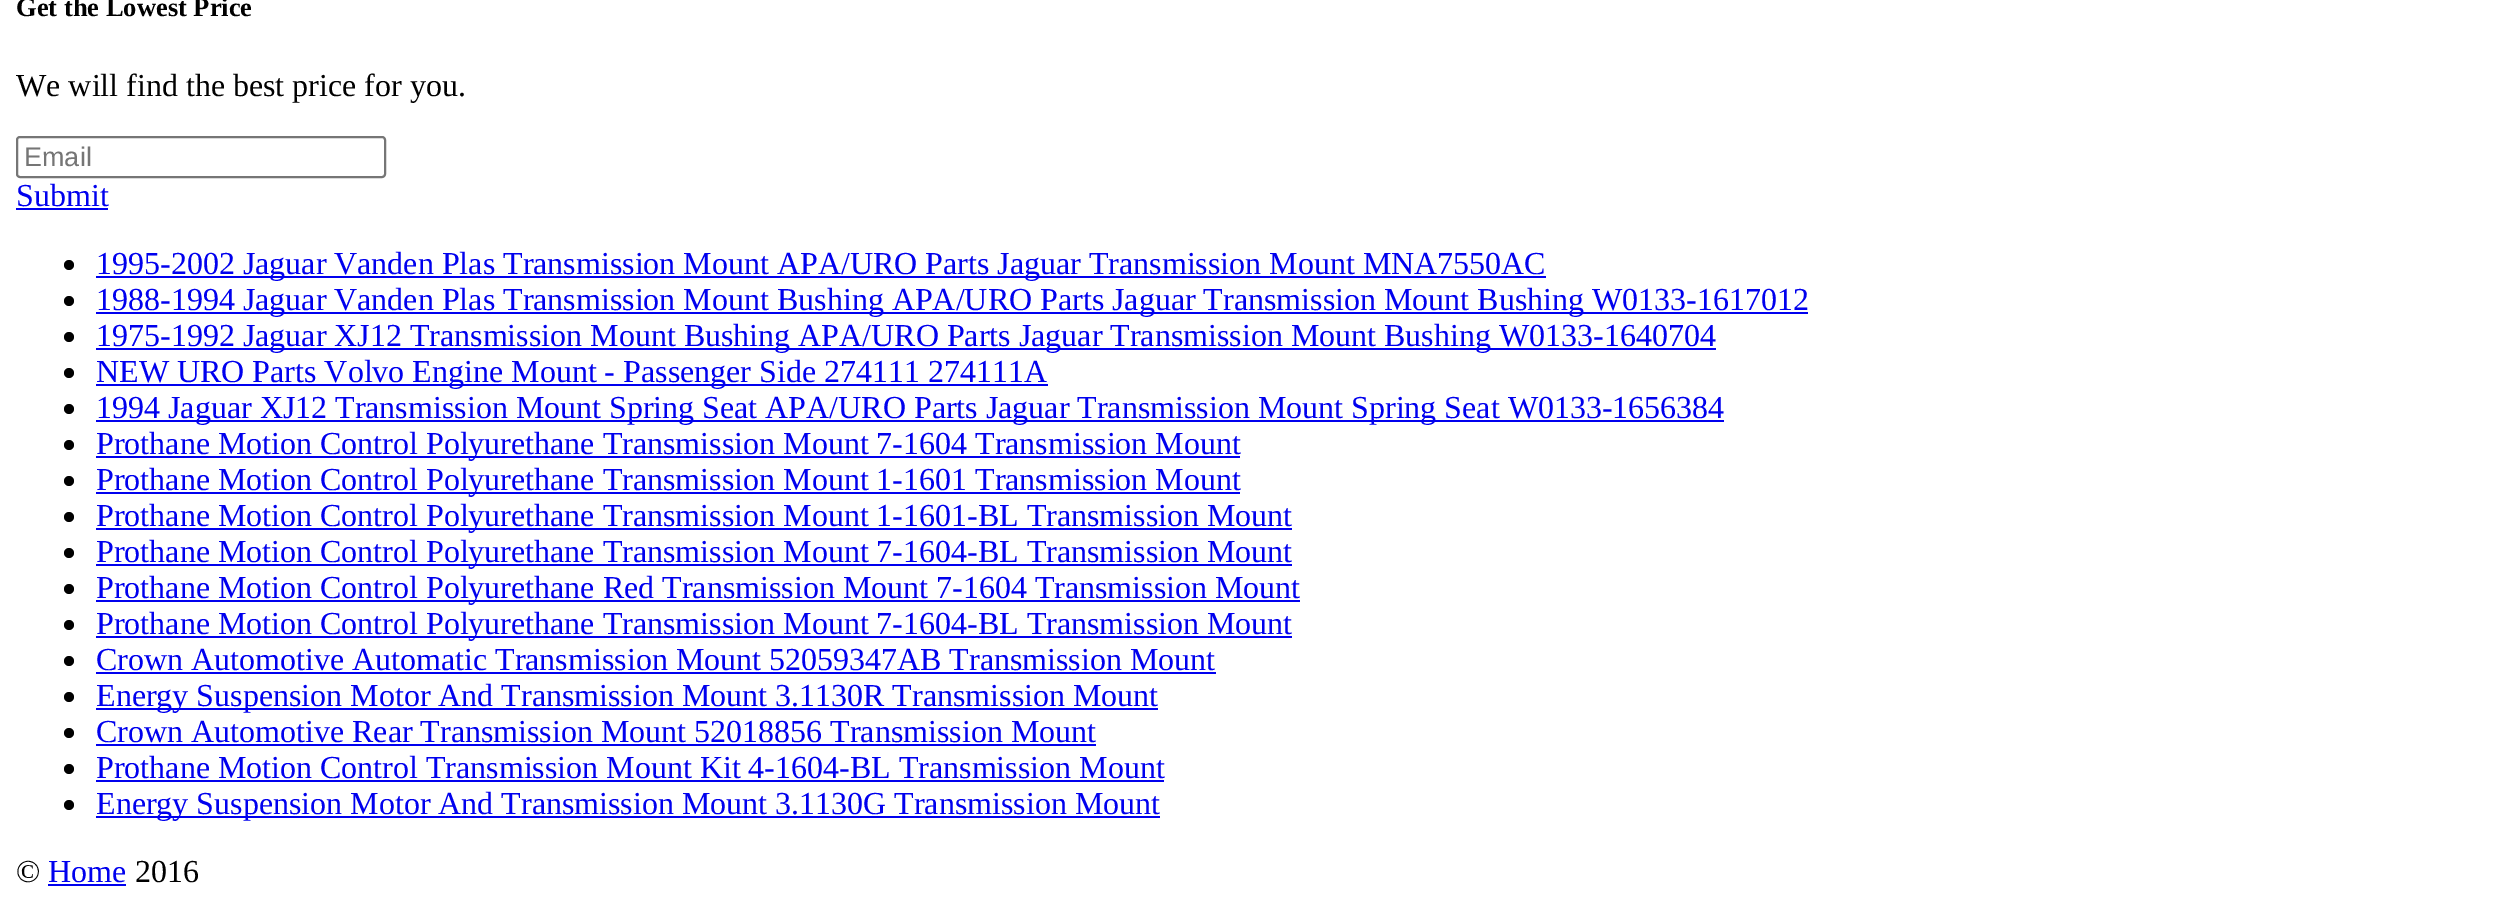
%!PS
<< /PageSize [2503 903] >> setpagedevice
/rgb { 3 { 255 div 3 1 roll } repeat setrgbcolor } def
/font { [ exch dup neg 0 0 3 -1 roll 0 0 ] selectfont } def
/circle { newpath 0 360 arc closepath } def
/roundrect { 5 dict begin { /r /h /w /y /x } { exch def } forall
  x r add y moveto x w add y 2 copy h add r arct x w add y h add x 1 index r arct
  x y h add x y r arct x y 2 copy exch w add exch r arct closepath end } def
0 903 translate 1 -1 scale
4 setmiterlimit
255 255 255 rgb
0 0 2503 903 rectfill
118 118 118 rgb
2 setlinewidth
17 137 368 40 3 roundrect stroke
0 0 238 rgb
16 208 92 2 rectfill
0 0 0 rgb
69 265 5 circle fill
0 0 238 rgb
96 276 1450 2 rectfill
0 0 0 rgb
69 301 5 circle fill
0 0 238 rgb
96 312 1712 2 rectfill
0 0 0 rgb
69 337 5 circle fill
0 0 238 rgb
96 348 1620 2 rectfill
0 0 0 rgb
69 373 5 circle fill
0 0 238 rgb
96 384 952 2 rectfill
0 0 0 rgb
69 409 5 circle fill
0 0 238 rgb
96 420 1628 2 rectfill
0 0 0 rgb
69 445 5 circle fill
0 0 238 rgb
96 456 1144 2 rectfill
0 0 0 rgb
69 481 5 circle fill
0 0 238 rgb
96 492 1144 2 rectfill
0 0 0 rgb
69 517 5 circle fill
0 0 238 rgb
96 528 1196 2 rectfill
0 0 0 rgb
69 553 5 circle fill
0 0 238 rgb
96 564 1196 2 rectfill
0 0 0 rgb
69 589 5 circle fill
0 0 238 rgb
96 600 1204 2 rectfill
0 0 0 rgb
69 625 5 circle fill
0 0 238 rgb
96 636 1196 2 rectfill
0 0 0 rgb
69 661 5 circle fill
0 0 238 rgb
96 672 1120 2 rectfill
0 0 0 rgb
69 697 5 circle fill
0 0 238 rgb
96 708 1062 2 rectfill
0 0 0 rgb
69 733 5 circle fill
0 0 238 rgb
96 744 1000 2 rectfill
0 0 0 rgb
69 769 5 circle fill
0 0 238 rgb
96 780 1068 2 rectfill
0 0 0 rgb
69 805 5 circle fill
0 0 238 rgb
96 816 1064 2 rectfill
48 884 78 2 rectfill
/LiberationSerif-Bold 26.5 font
0 0 0 rgb
16 16 moveto (Get the Lowest Price) show
/LiberationSerif-Regular 32 font
16 96 moveto (We will find the best price for you.) show
/LiberationSans-Regular 27 font
117 117 117 rgb
24 166 moveto (Email) show
/LiberationSerif-Regular 32 font
0 0 238 rgb
[
  [(Submit) 16 206]
  [(1995-2002 Jaguar Vanden Plas Transmission Mount APA/URO Parts Jaguar Transmission Mount MNA7550AC) 96 274]
  [(1988-1994 Jaguar Vanden Plas Transmission Mount Bushing APA/URO Parts Jaguar Transmission Mount Bushing W0133-1617012) 96 310]
  [(1975-1992 Jaguar XJ12 Transmission Mount Bushing APA/URO Parts Jaguar Transmission Mount Bushing W0133-1640704) 96 346]
  [(NEW URO Parts Volvo Engine Mount - Passenger Side 274111 274111A) 96 382]
  [(1994 Jaguar XJ12 Transmission Mount Spring Seat APA/URO Parts Jaguar Transmission Mount Spring Seat W0133-1656384) 96 418]
  [(Prothane Motion Control Polyurethane Transmission Mount 7-1604 Transmission Mount) 96 454]
  [(Prothane Motion Control Polyurethane Transmission Mount 1-1601 Transmission Mount) 96 490]
  [(Prothane Motion Control Polyurethane Transmission Mount 1-1601-BL Transmission Mount) 96 526]
  [(Prothane Motion Control Polyurethane Transmission Mount 7-1604-BL Transmission Mount) 96 562]
  [(Prothane Motion Control Polyurethane Red Transmission Mount 7-1604 Transmission Mount) 96 598]
  [(Prothane Motion Control Polyurethane Transmission Mount 7-1604-BL Transmission Mount) 96 634]
  [(Crown Automotive Automatic Transmission Mount 52059347AB Transmission Mount) 96 670]
  [(Energy Suspension Motor And Transmission Mount 3.1130R Transmission Mount) 96 706]
  [(Crown Automotive Rear Transmission Mount 52018856 Transmission Mount) 96 742]
  [(Prothane Motion Control Transmission Mount Kit 4-1604-BL Transmission Mount) 96 778]
  [(Energy Suspension Motor And Transmission Mount 3.1130G Transmission Mount) 96 814]
] { aload pop moveto show } forall
0 0 0 rgb
16 882 moveto (©) show
0 0 238 rgb
48 882 moveto (Home) show
0 0 0 rgb
135 882 moveto (2016) show
showpage
